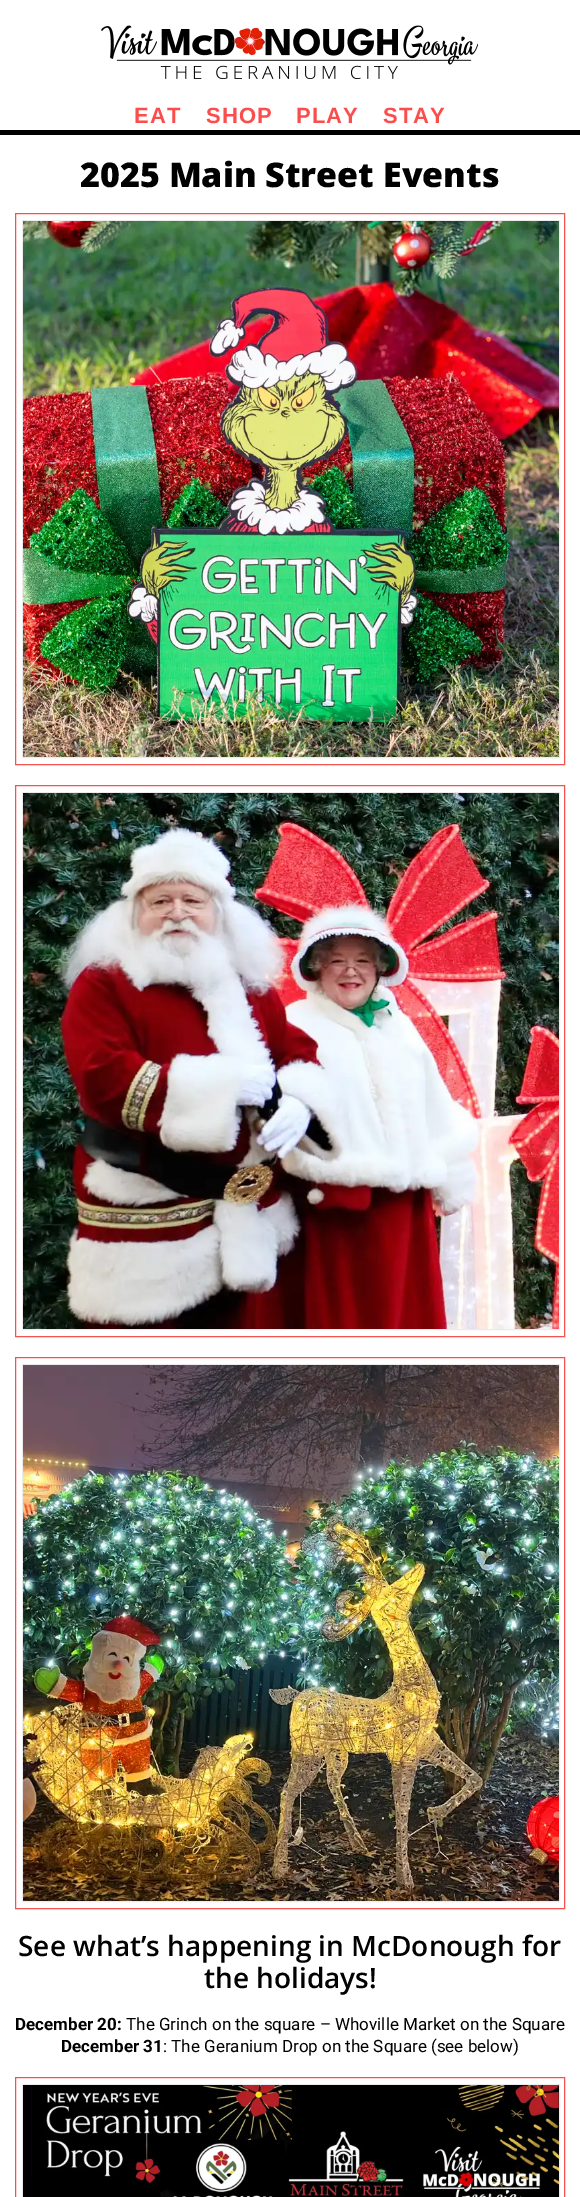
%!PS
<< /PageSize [580 2197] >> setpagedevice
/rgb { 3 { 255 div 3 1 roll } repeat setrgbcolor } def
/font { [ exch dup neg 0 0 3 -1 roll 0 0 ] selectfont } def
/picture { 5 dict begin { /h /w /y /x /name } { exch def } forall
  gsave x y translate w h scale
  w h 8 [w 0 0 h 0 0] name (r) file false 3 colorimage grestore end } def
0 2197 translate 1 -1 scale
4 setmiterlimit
255 255 255 rgb
0 0 580 2197 rectfill
0 0 0 rgb
0 130 580 5 rectfill
(img/1.rgb) 101 25 377 54 picture
244 82 77 rgb
15.5 213.5 549 551 rectstroke
235 235 235 rgb
22.5 220.5 537 537 rectstroke
(img/2.rgb) 23 221 536 536 picture
244 82 77 rgb
15.5 785.5 549 551 rectstroke
235 235 235 rgb
22.5 792.5 537 537 rectstroke
(img/3.rgb) 23 793 536 536 picture
244 82 77 rgb
15.5 1357.5 549 551 rectstroke
235 235 235 rgb
22.5 1364.5 537 537 rectstroke
(img/4.rgb) 23 1365 536 536 picture
244 82 77 rgb
15.5 2077.5 549 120 rectstroke
235 235 235 rgb
22.5 2084.5 537 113 rectstroke
(img/5.rgb) 23 2085 536 112 picture
/LiberationSans-Bold 22 font
252 77 77 rgb
134 123 moveto 1 0 (EAT) ashow
206 123 moveto 1 0 (SHOP) ashow
296 123 moveto 1 0 (PLAY) ashow
383 123 moveto 1 0 (STAY) ashow
/OpenSans-ExtraBold 34 font
0 0 0 rgb
80 187 moveto (2025 Main Street Events) show
/OpenSans-SemiBold 28 font
18 1956 moveto (See what’s happening in McDonough for) show
204 1988 moveto (the holidays!) show
/Roboto-Bold 17 font
15 2030 moveto (December 20:) show
/Roboto-Regular 17 font
126 2030 moveto (The Grinch on the square – Whoville Market on the Square) show
/Roboto-Bold 17 font
61 2052 moveto (December 31) show
/Roboto-Regular 17 font
163 2052 moveto (: The Geranium Drop on the Square \(see below\)) show
showpage
